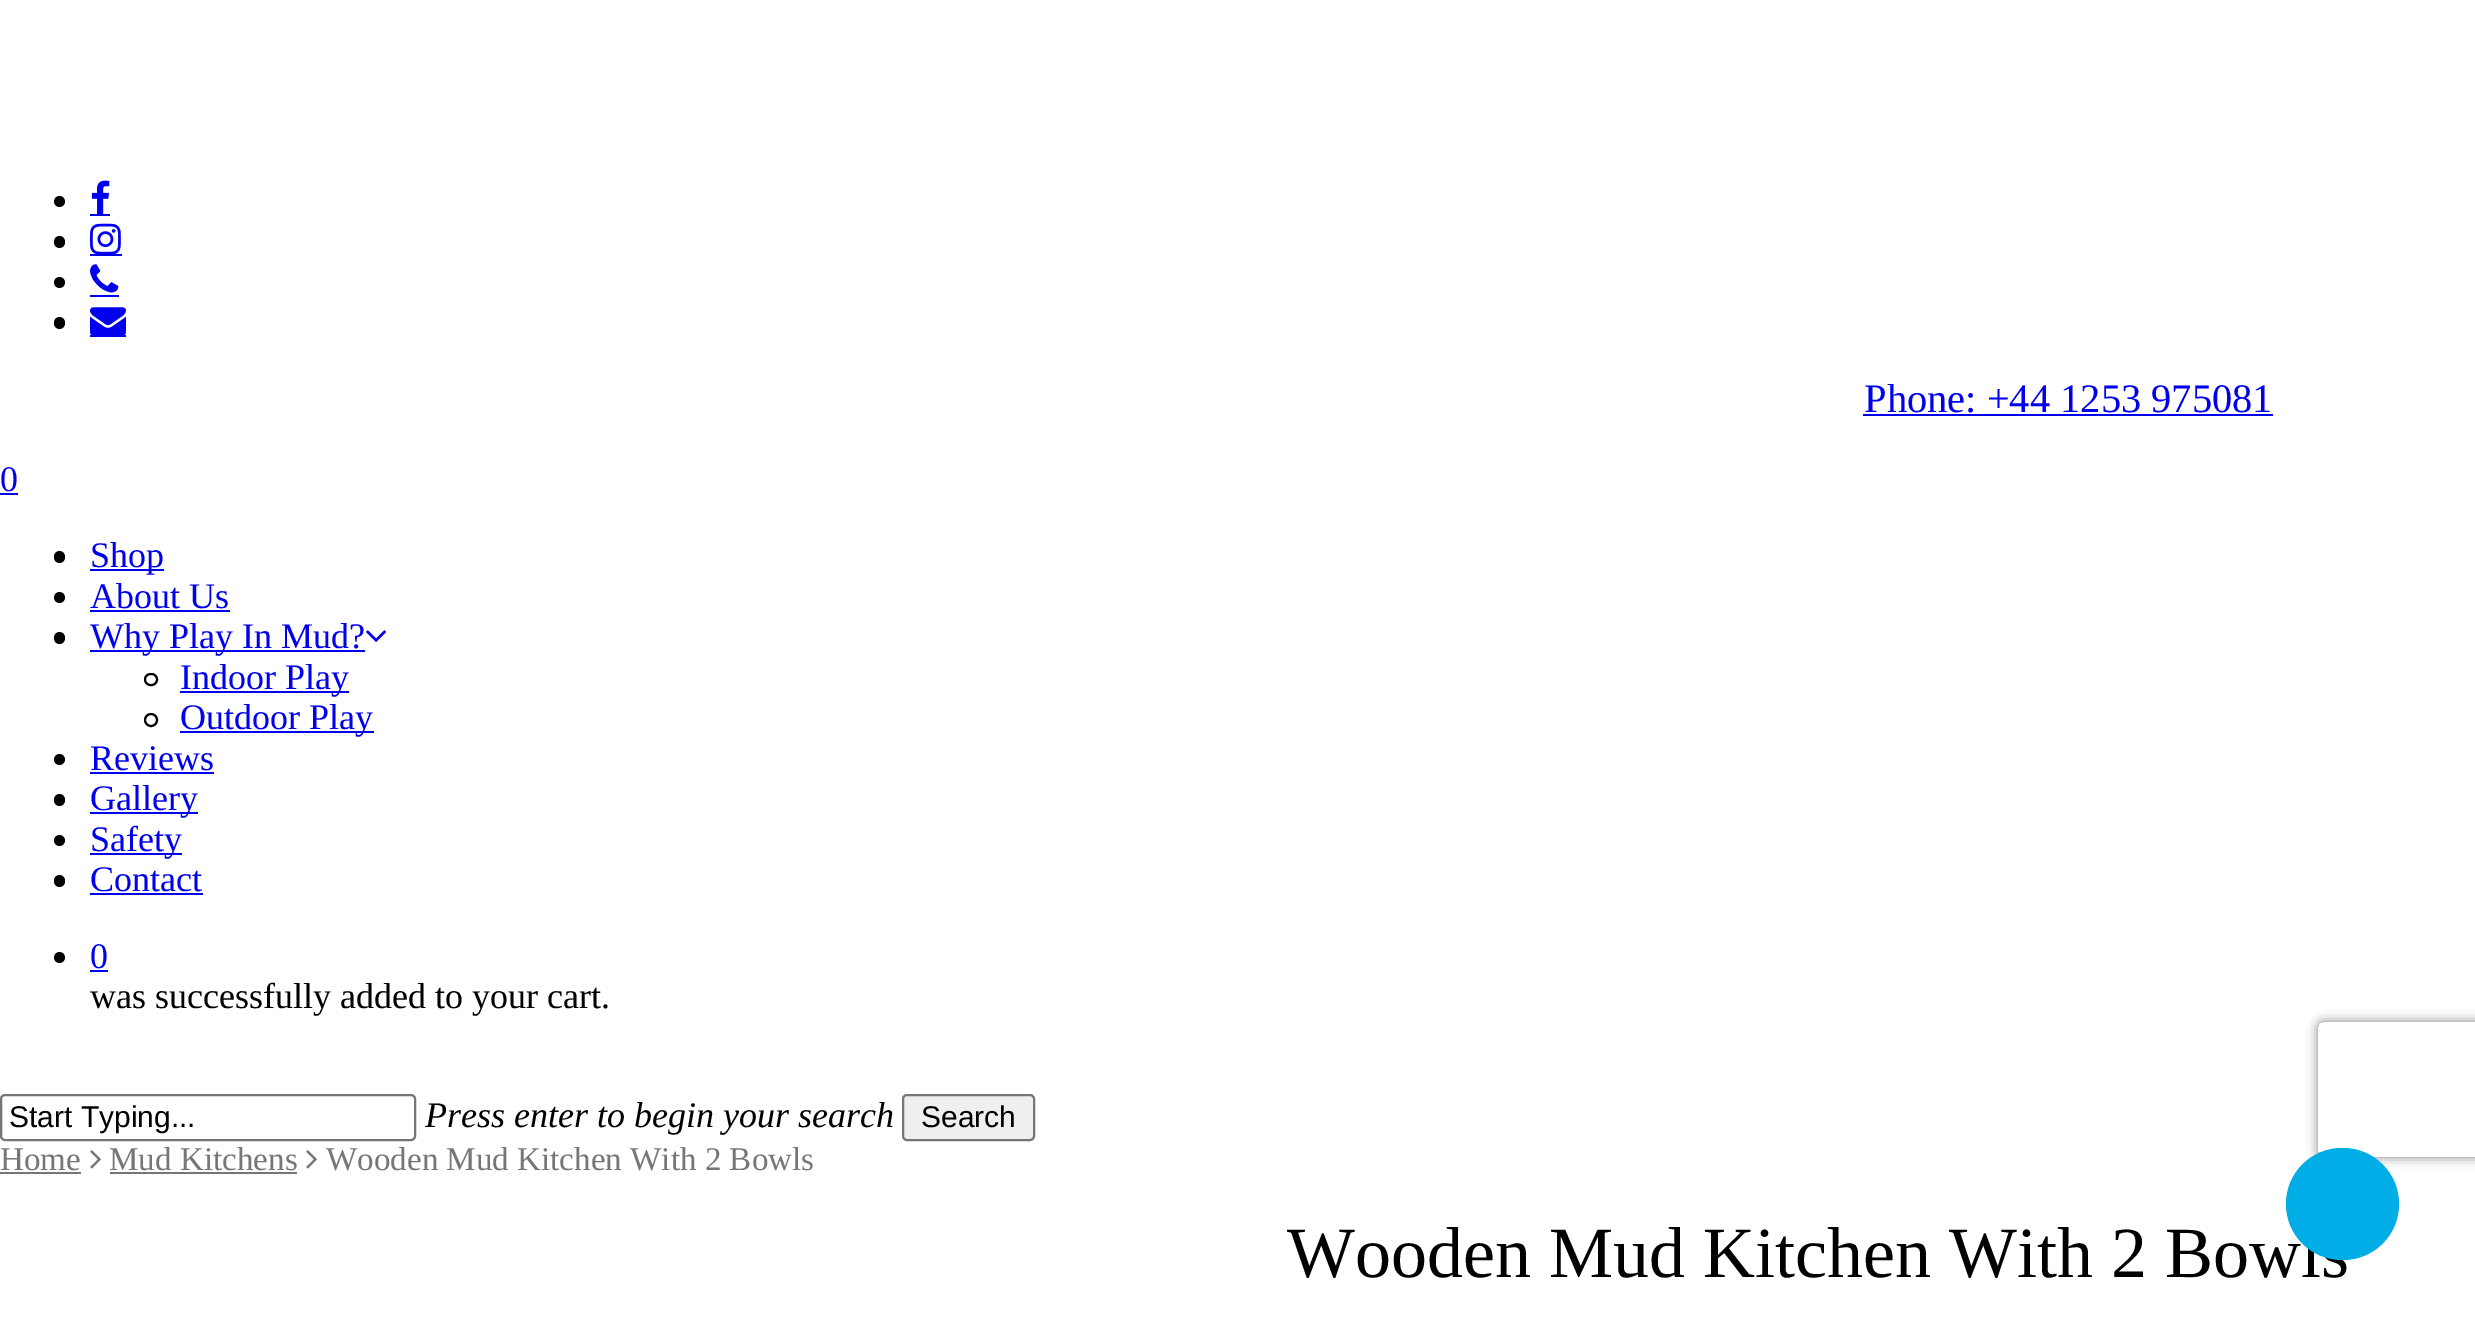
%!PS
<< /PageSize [2475 1336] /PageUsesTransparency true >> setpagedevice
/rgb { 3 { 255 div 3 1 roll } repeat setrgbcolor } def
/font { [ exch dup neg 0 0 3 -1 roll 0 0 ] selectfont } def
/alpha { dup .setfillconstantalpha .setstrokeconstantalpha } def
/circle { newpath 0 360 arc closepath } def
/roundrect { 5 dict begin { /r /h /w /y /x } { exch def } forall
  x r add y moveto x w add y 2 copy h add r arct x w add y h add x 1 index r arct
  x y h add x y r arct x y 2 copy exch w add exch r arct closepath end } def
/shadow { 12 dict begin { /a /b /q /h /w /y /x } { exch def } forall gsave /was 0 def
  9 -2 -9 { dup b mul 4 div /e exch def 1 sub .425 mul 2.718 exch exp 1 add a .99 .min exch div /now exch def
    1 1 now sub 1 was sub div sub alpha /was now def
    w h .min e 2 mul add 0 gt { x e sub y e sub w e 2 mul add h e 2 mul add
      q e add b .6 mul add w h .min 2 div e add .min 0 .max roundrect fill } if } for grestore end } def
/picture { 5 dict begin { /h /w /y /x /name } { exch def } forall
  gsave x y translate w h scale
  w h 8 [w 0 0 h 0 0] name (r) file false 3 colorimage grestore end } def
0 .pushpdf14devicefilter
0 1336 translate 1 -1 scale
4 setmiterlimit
255 255 255 rgb
0 0 2475 1336 rectfill
0 0 0 rgb
59.5 201.5 5.5 circle fill
(img/1.rgb) 91 180 19 34 picture
0 0 238 rgb
90 214 20 2 rectfill
0 0 0 rgb
54 236 11 12 5.5 roundrect fill
(img/2.rgb) 90 223 31 31 picture
0 0 238 rgb
90 254 32 2 rectfill
0 0 0 rgb
59.5 282.5 5.5 circle fill
(img/3.rgb) 90 264 29 29 picture
0 0 238 rgb
90 295 29 2 rectfill
0 0 0 rgb
54 317 11 12 5.5 roundrect fill
(img/4.rgb) 90 307 36 28 picture
[
  [90 335 36 2 0 0 238]
  [1863 414 410 2 0 0 238]
  [0 493 18 2 0 0 238]
] { aload pop rgb rectfill } forall
0 0 0 rgb
54 551 11 12 5.5 roundrect fill
0 0 238 rgb
90 569 74 2 rectfill
0 0 0 rgb
59.5 597.5 5.5 circle fill
0 0 238 rgb
90 610 140 2 rectfill
0 0 0 rgb
54 632 11 12 5.5 roundrect fill
0 0 238 rgb
90 650 275 2 rectfill
(img/5.rgb) 366 630 20 12 picture
0 0 0 rgb
2 setlinewidth
145 674 12 11 5.5 roundrect stroke
0 0 238 rgb
180 691 169 2 rectfill
0 0 0 rgb
151 720 6 circle stroke
0 0 238 rgb
180 731 194 2 rectfill
0 0 0 rgb
59.5 759.5 5.5 circle fill
0 0 238 rgb
90 772 124 2 rectfill
0 0 0 rgb
54 794 11 12 5.5 roundrect fill
0 0 238 rgb
90 812 108 2 rectfill
0 0 0 rgb
59.5 840.5 5.5 circle fill
0 0 238 rgb
90 853 92 2 rectfill
0 0 0 rgb
54 875 11 12 5.5 roundrect fill
0 0 238 rgb
90 893 113 2 rectfill
0 0 0 rgb
59.5 957.5 5.5 circle fill
0 0 238 rgb
90 970 18 2 rectfill
118 118 118 rgb
1 1095 414 45 4 roundrect stroke
239 239 239 rgb
903 1095 131 45 4 roundrect gsave fill grestore
118 118 118 rgb
stroke
gsave
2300 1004 moveto 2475 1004 lineto 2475 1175 lineto 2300 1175 lineto closepath 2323 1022 moveto 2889 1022 lineto 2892 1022 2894 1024 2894 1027 curveto 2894 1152 lineto 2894 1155 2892 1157 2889 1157 curveto 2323 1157 lineto 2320 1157 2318 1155 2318 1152 curveto 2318 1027 lineto 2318 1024 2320 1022 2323 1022 curveto closepath eoclip newpath
128 128 128 rgb
2318 1022 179 135 5 5.5 1 shadow
grestore
0 1172 81 2 rectfill
(img/6.rgb) 90 1150 11 19 picture
110 1172 187 2 rectfill
(img/6.rgb) 306 1150 11 19 picture
/LiberationSerif-Regular 40.5 font
0 0 238 rgb
1864 412 moveto (Phone: +44 1253 975081) show
/LiberationSerif-Regular 36 font
[
  [(0) 0 491]
  [(Shop) 90 567]
  [(About Us) 90 608]
  [(Why Play In Mud?) 90 648]
  [(Indoor Play) 180 689]
  [(Outdoor Play) 180 729]
  [(Reviews) 90 770]
  [(Gallery) 90 810]
  [(Safety) 90 851]
  [(Contact) 90 891]
  [(0) 90 968]
] { aload pop moveto show } forall
0 0 0 rgb
90 1008 moveto (was successfully added to your cart.) show
/LiberationSans-Regular 30 font
9 1127 moveto (Start Typing...) show
/LiberationSerif-Italic 36 font
425 1127 moveto (Press enter to begin your search) show
/LiberationSans-Regular 30 font
921 1127 moveto (Search) show
/LiberationSerif-Regular 33.1 font
118 118 118 rgb
[
  [(Home) 0 1170]
  [(Mud Kitchens) 109 1170]
  [(Wooden Mud Kitchen With 2 Bowls) 326 1170]
] { aload pop moveto show } forall
/LiberationSerif-Regular 72 font
0 0 0 rgb
1287 1277 moveto (Wooden Mud Kitchen With 2 Bowls) show
0 173 230 rgb
2286 1148 113 112 56 roundrect fill
.poppdf14devicefilter showpage
